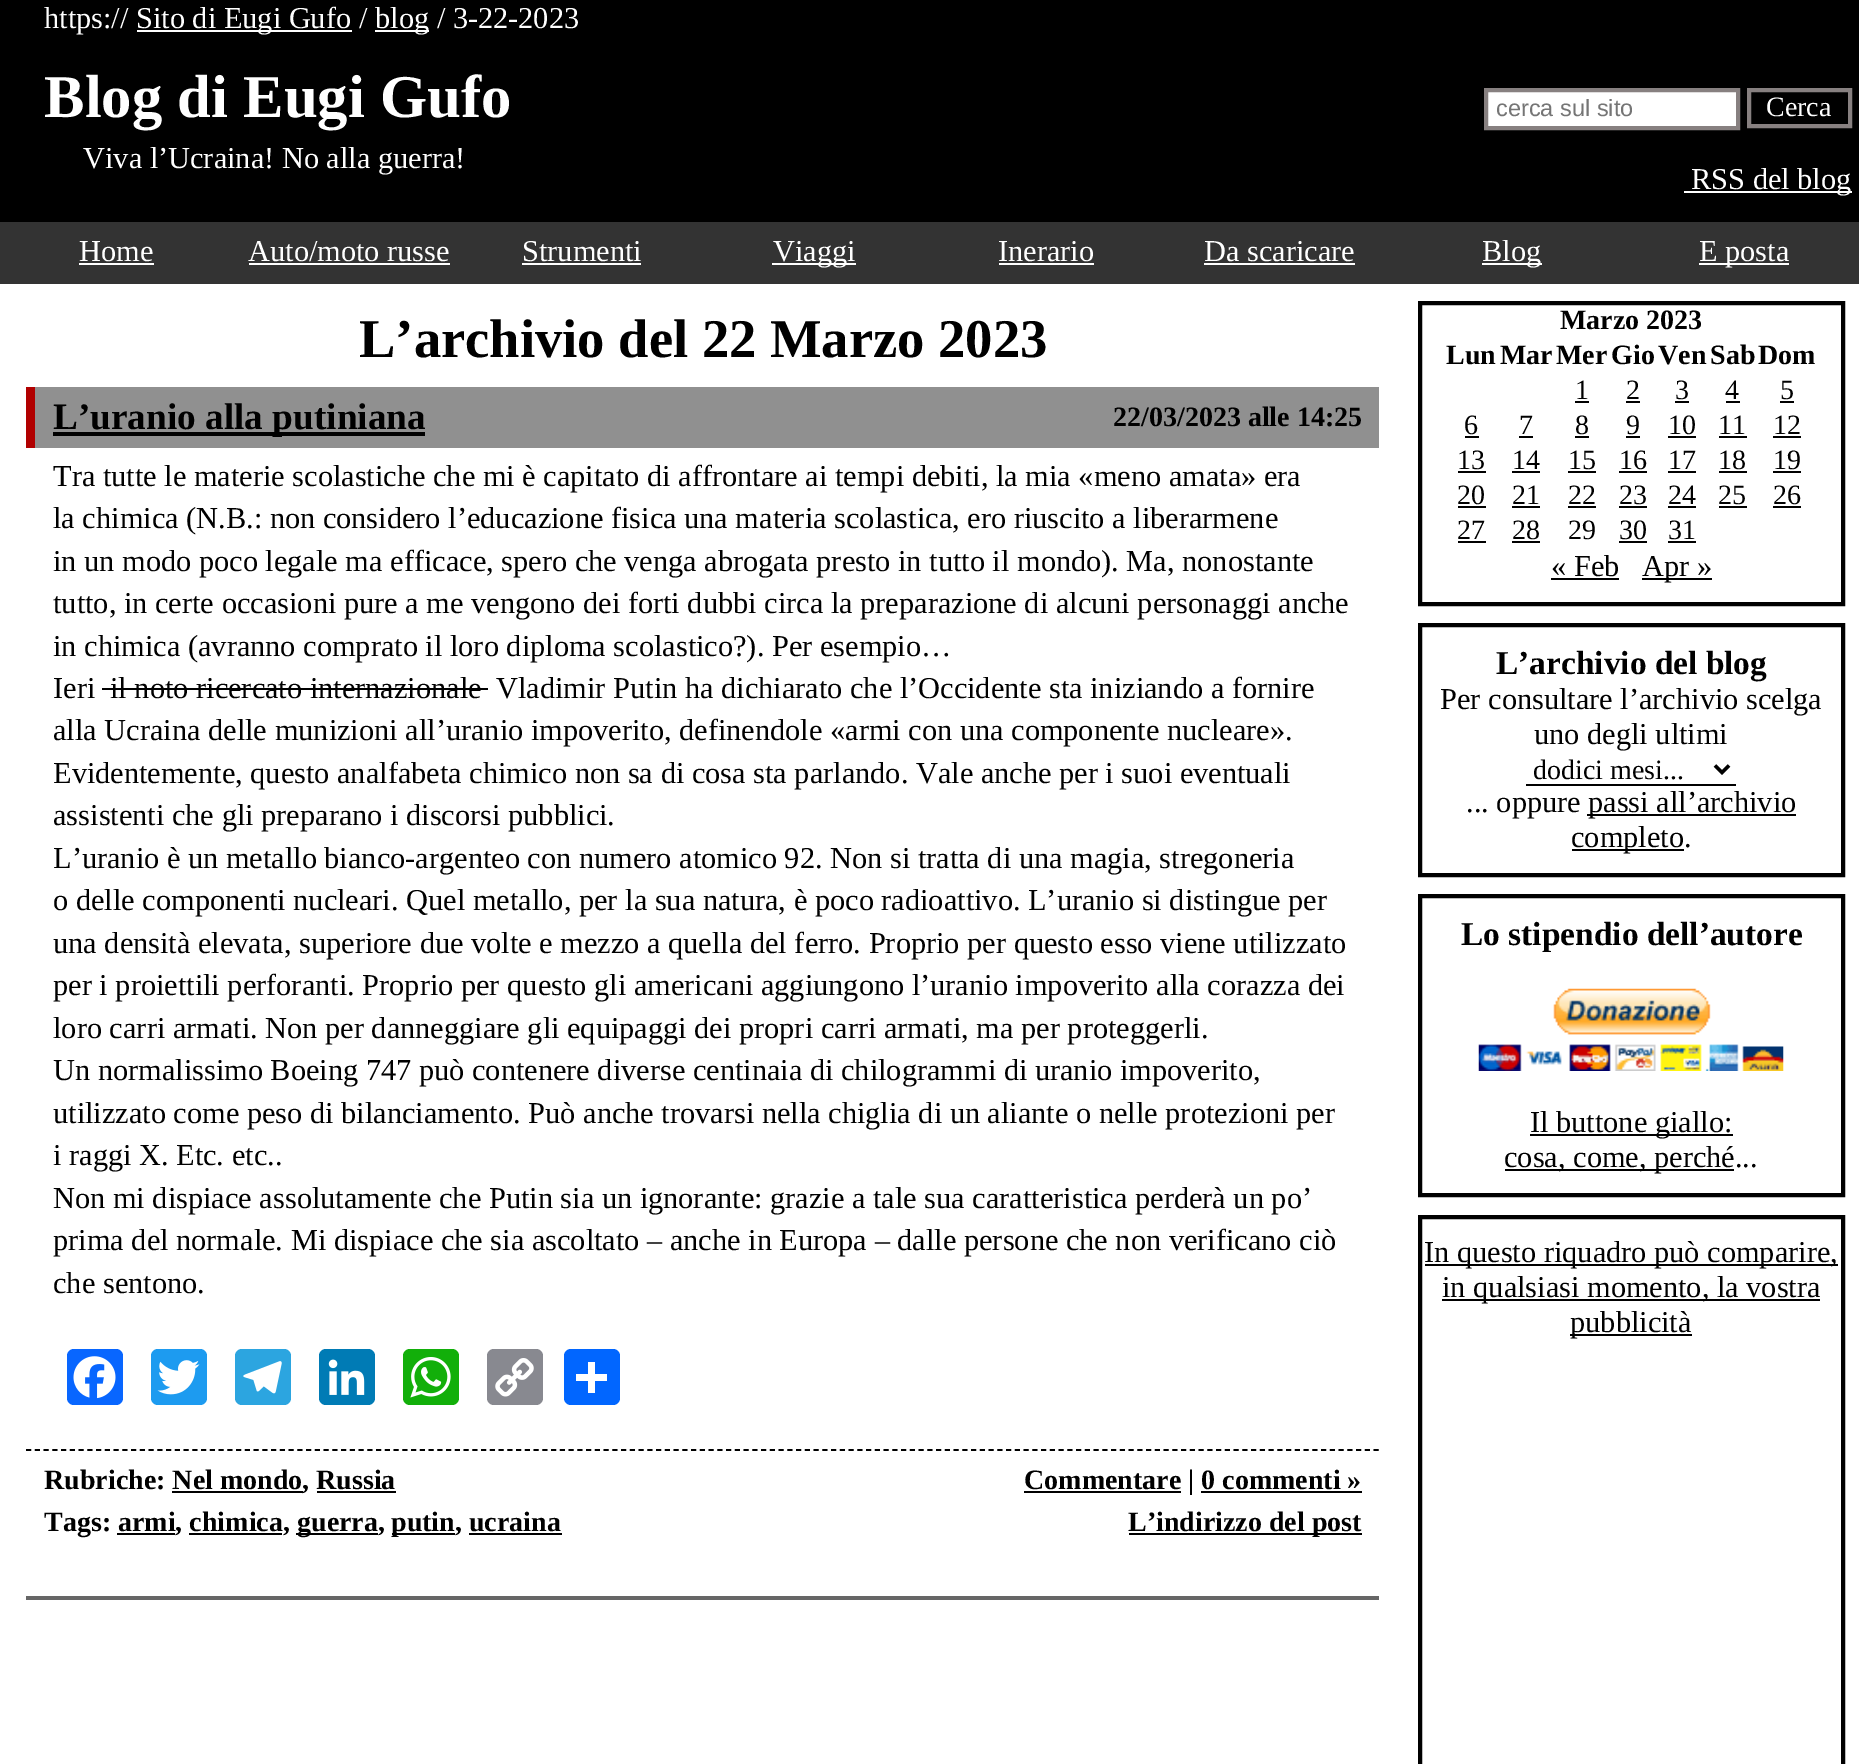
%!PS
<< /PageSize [1859 1764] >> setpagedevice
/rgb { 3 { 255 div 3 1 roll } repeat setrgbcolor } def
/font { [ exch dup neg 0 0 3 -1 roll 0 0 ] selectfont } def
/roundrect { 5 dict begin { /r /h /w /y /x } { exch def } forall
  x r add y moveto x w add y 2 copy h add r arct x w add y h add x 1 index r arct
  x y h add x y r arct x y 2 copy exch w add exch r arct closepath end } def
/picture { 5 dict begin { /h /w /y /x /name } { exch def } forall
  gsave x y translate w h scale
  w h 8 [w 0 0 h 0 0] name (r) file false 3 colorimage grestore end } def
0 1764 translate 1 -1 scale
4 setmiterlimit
255 255 255 rgb
0 0 1859 1764 rectfill
[
  [0 0 1859 222 0 0 0]
  [137 30 215 2 255 255 255]
  [375 30 54 2 255 255 255]
] { aload pop rgb rectfill } forall
1486 90 moveto 1738 90 lineto 1738 128 lineto 1486 128 lineto closepath gsave fill grestore
135 128 128 rgb
4 setlinewidth
stroke
1749 90 101 36 rectstroke
[
  [1684 191 168 2 255 255 255]
  [0 222 1859 62 51 51 51]
  [79 263 75 2 255 255 255]
  [249 263 201 2 255 255 255]
  [522 263 119 2 255 255 255]
  [772 263 84 2 255 255 255]
  [999 263 95 2 255 255 255]
  [1204 263 151 2 255 255 255]
  [1482 263 60 2 255 255 255]
  [1699 263 90 2 255 255 255]
  [35 387 1344 61 144 144 144]
  [26 387 9 61 177 0 0]
  [53 432 372 4 0 0 0]
  [102 688 386 2 0 0 0]
] { aload pop rgb rectfill } forall
8 102 255 rgb
67 1349 56 56 7 roundrect fill
(img/1.rgb) 73 1356 43 43 picture
29 155 240 rgb
151 1349 56 56 7 roundrect fill
(img/2.rgb) 157 1360 43 35 picture
44 165 224 rgb
235 1349 56 56 7 roundrect fill
(img/3.rgb) 243 1361 39 33 picture
0 123 181 rgb
319 1349 56 56 7 roundrect fill
(img/4.rgb) 328 1359 37 36 picture
18 175 10 rgb
403 1349 56 56 7 roundrect fill
(img/5.rgb) 410 1357 41 41 picture
136 137 144 rgb
487 1349 56 56 7 roundrect fill
(img/6.rgb) 495 1358 39 39 picture
1 102 255 rgb
564 1349 56 56 7 roundrect fill
255 255 255 rgb
588 1362 7 31 rectfill
576 1374 31 7 rectfill
0 0 0 rgb
1.8 setlinewidth
[5.25 3.5] 0 setdash
26 1450 moveto 1379 1450 lineto stroke
[
  [172 1491 131 2 0 0 0]
  [317 1491 79 2 0 0 0]
  [296 1533 82 2 0 0 0]
  [392 1533 63 2 0 0 0]
  [117 1533 58 2 0 0 0]
  [189 1533 93 2 0 0 0]
  [469 1533 93 2 0 0 0]
  [1024 1491 157 2 0 0 0]
  [1201 1491 161 2 0 0 0]
  [1129 1533 233 2 0 0 0]
  [26 1596 1353 4 102 102 102]
] { aload pop rgb rectfill } forall
0 0 0 rgb
4 setlinewidth
[] 0 setdash
1420 303 423 301 rectstroke
[
  [1575 401 14 2 0 0 0]
  [1626 401 14 2 0 0 0]
  [1675 401 14 2 0 0 0]
  [1726 401 14 2 0 0 0]
  [1780 401 14 2 0 0 0]
  [1465 436 14 2 0 0 0]
  [1519 436 14 2 0 0 0]
  [1575 436 14 2 0 0 0]
  [1626 436 14 2 0 0 0]
  [1668 436 28 2 0 0 0]
  [1719 436 28 2 0 0 0]
  [1773 436 28 2 0 0 0]
  [1458 471 28 2 0 0 0]
  [1512 471 28 2 0 0 0]
  [1568 471 28 2 0 0 0]
  [1619 471 28 2 0 0 0]
  [1668 471 28 2 0 0 0]
  [1719 471 28 2 0 0 0]
  [1773 471 28 2 0 0 0]
  [1458 506 28 2 0 0 0]
  [1512 506 28 2 0 0 0]
  [1568 506 28 2 0 0 0]
  [1619 506 28 2 0 0 0]
  [1668 506 28 2 0 0 0]
  [1719 506 28 2 0 0 0]
  [1773 506 28 2 0 0 0]
  [1458 541 28 2 0 0 0]
  [1512 541 28 2 0 0 0]
  [1619 541 28 2 0 0 0]
  [1668 541 28 2 0 0 0]
  [1551 578 68 2 0 0 0]
  [1642 578 70 2 0 0 0]
] { aload pop rgb rectfill } forall
1420 625 423 250 rectstroke
1526 784 210 2 rectfill
3.5 setlinewidth
1715 765.5 moveto 1722 772.5 lineto 1729 765.5 lineto stroke
1587 814 209 2 rectfill
1572 849 112 2 rectfill
4 setlinewidth
1420 896 423 299 rectstroke
(img/7.rgb) 1478 988 306 83 picture
1530 1134 203 2 rectfill
1505 1169 229 2 rectfill
1420 1217 423 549 rectstroke
[
  [1425 1264 413 2 0 0 0]
  [1442 1299 378 2 0 0 0]
  [1570 1334 122 2 0 0 0]
] { aload pop rgb rectfill } forall
/LiberationSerif-Regular 30.35 font
255 255 255 rgb
[
  [(https://) 44 28]
  [(Sito di Eugi Gufo /) 136 28]
  [(blog / 3-22-2023) 375 28]
] { aload pop moveto show } forall
/LiberationSerif-Bold 60.75 font
44 117 moveto (Blog di Eugi Gufo) show
/LiberationSerif-Regular 30.35 font
83 168 moveto (Viva l’Ucraina! No alla guerra!) show
/LiberationSans-Regular 23.5 font
117 117 117 rgb
1496 116 moveto (cerca sul sito) show
/LiberationSerif-Regular 28 font
255 255 255 rgb
1766 116 moveto (Cerca) show
/LiberationSerif-Regular 30.35 font
[
  [(RSS del blog) 1691 189]
  [(Home) 79 261]
  [(Auto/moto russe) 248 261]
  [(Strumenti) 522 261]
  [(Viaggi) 773 261]
  [(Inerario) 998 261]
  [(Da scaricare) 1204 261]
  [(Blog) 1482 261]
  [(E posta) 1699 261]
] { aload pop moveto show } forall
/LiberationSerif-Bold 54.6 font
0 0 0 rgb
359 357 moveto (L’archivio del 22 Marzo 2023) show
/LiberationSerif-Bold 37.25 font
53 429 moveto (L’uranio alla putiniana) show
/LiberationSerif-Bold 28 font
1113 426 moveto (22/03/2023 alle 14:25) show
/LiberationSerif-Regular 30.35 font
[
  [(Tra tutte le materie scolastiche che mi è capitato di affrontare ai tempi debiti, la mia «meno amata» era) 53 486]
  [(la chimica \(N.B.: non considero l’educazione fisica una materia scolastica, ero riuscito a liberarmene) 53 528]
  [(in un modo poco legale ma efficace, spero che venga abrogata presto in tutto il mondo\). Ma, nonostante) 53 571]
  [(tutto, in certe occasioni pure a me vengono dei forti dubbi circa la preparazione di alcuni personaggi anche) 53 613]
  [(in chimica \(avranno comprato il loro diploma scolastico?\). Per esempio…) 53 656]
  [(Ieri) 53 698]
  [(il noto ricercato internazionale) 110 698]
  [(Vladimir Putin ha dichiarato che l’Occidente sta iniziando a fornire) 496 698]
  [(alla Ucraina delle munizioni all’uranio impoverito, definendole «armi con una componente nucleare».) 53 740]
  [(Evidentemente, questo analfabeta chimico non sa di cosa sta parlando. Vale anche per i suoi eventuali) 53 783]
  [(assistenti che gli preparano i discorsi pubblici.) 53 825]
  [(L’uranio è un metallo bianco-argenteo con numero atomico 92. Non si tratta di una magia, stregoneria) 53 868]
  [(o delle componenti nucleari. Quel metallo, per la sua natura, è poco radioattivo. L’uranio si distingue per) 53 910]
  [(una densità elevata, superiore due volte e mezzo a quella del ferro. Proprio per questo esso viene utilizzato) 53 953]
  [(per i proiettili perforanti. Proprio per questo gli americani aggiungono l’uranio impoverito alla corazza dei) 53 995]
  [(loro carri armati. Non per danneggiare gli equipaggi dei propri carri armati, ma per proteggerli.) 53 1038]
  [(Un normalissimo Boeing 747 può contenere diverse centinaia di chilogrammi di uranio impoverito,) 53 1080]
  [(utilizzato come peso di bilanciamento. Può anche trovarsi nella chiglia di un aliante o nelle protezioni per) 53 1123]
  [(i raggi X. Etc. etc..) 53 1165]
  [(Non mi dispiace assolutamente che Putin sia un ignorante: grazie a tale sua caratteristica perderà un po’) 53 1208]
  [(prima del normale. Mi dispiace che sia ascoltato – anche in Europa – dalle persone che non verificano ciò) 53 1250]
  [(che sentono.) 53 1293]
] { aload pop moveto show } forall
/LiberationSerif-Bold 28 font
[
  [(Rubriche: Nel mondo) 44 1489]
  [(, Russia) 302 1489]
  [(Tags: armi, chimica,) 44 1531]
  [(guerra,) 297 1531]
  [(putin, ucraina) 391 1531]
  [(Commentare | 0 commenti ») 1024 1489]
  [(L’indirizzo del post) 1128 1531]
  [(Marzo 2023) 1560 329]
  [(Lun) 1446 364]
  [(Mar) 1500 364]
  [(Mer) 1556 364]
  [(Gio) 1611 364]
  [(Ven) 1658 364]
  [(Sab) 1710 364]
  [(Dom) 1758 364]
] { aload pop moveto show } forall
/LiberationSerif-Regular 28 font
[
  [(1) 1575 399]
  [(2) 1626 399]
  [(3) 1675 399]
  [(4) 1725 399]
  [(5) 1780 399]
  [(6) 1464 434]
  [(7) 1519 434]
  [(8) 1575 434]
  [(9) 1626 434]
  [(10) 1668 434]
  [(11) 1718 434]
  [(12) 1773 434]
  [(13) 1457 469]
  [(14) 1512 469]
  [(15) 1568 469]
  [(16) 1619 469]
  [(17) 1668 469]
  [(18) 1718 469]
  [(19) 1773 469]
  [(20) 1457 504]
  [(21) 1512 504]
  [(22) 1568 504]
  [(23) 1619 504]
  [(24) 1668 504]
  [(25) 1718 504]
  [(26) 1773 504]
  [(27) 1457 539]
  [(28) 1512 539]
  [(29) 1568 539]
  [(30) 1619 539]
  [(31) 1668 539]
] { aload pop moveto show } forall
/LiberationSerif-Regular 30.35 font
1551 576 moveto (« Feb) show
1642 576 moveto (Apr ») show
/LiberationSerif-Bold 33.4 font
1496 674 moveto (L’archivio del blog) show
/LiberationSerif-Regular 30.35 font
1440 709 moveto (Per consultare l’archivio scelga) show
1534 744 moveto (uno degli ultimi) show
/LiberationSerif-Regular 28 font
1533 779 moveto (dodici mesi...) show
/LiberationSerif-Regular 30.35 font
[
  [(... oppure) 1466 812]
  [(passi all’archivio) 1588 812]
  [(completo.) 1571 847]
] { aload pop moveto show } forall
/LiberationSerif-Bold 33.4 font
1461 945 moveto (Lo stipendio dell’autore) show
/LiberationSerif-Regular 30.35 font
[
  [(Il buttone giallo:) 1530 1132]
  [(cosa, come, perché...) 1504 1167]
  [(In questo riquadro può comparire,) 1424 1262]
  [(in qualsiasi momento, la vostra) 1442 1297]
  [(pubblicità) 1570 1332]
] { aload pop moveto show } forall
showpage
